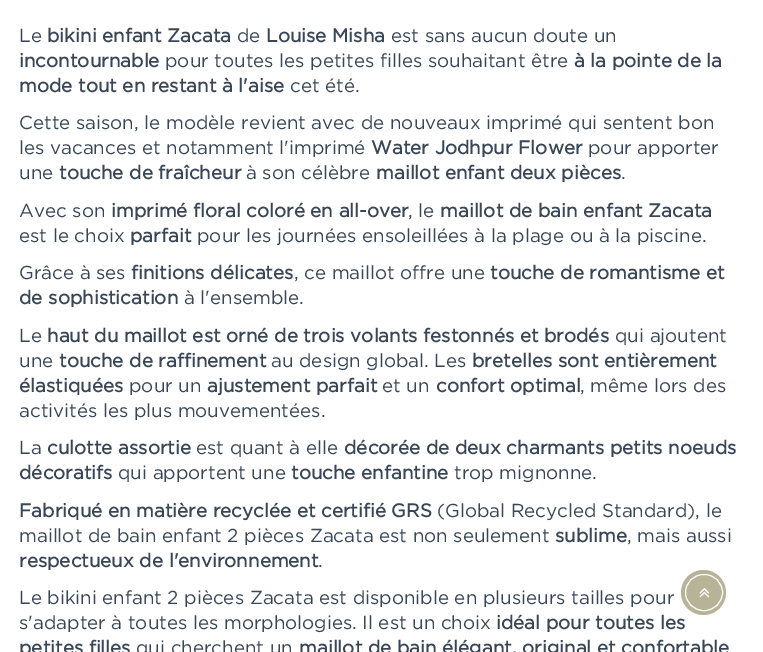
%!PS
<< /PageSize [763 652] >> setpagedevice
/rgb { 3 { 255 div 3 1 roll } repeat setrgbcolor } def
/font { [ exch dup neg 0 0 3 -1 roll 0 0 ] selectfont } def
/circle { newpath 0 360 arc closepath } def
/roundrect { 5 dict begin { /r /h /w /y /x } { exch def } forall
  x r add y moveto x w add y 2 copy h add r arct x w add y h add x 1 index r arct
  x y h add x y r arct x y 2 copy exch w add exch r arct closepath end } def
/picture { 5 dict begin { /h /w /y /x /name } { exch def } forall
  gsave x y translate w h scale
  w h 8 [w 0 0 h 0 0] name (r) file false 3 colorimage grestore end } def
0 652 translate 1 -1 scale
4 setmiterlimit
255 255 255 rgb
0 0 763 652 rectfill
182 179 151 rgb
703.5 592.5 22.5 circle fill
255 255 255 rgb
685.5 574.5 37 36 18 roundrect stroke
(img/1.rgb) 699 588 11 10 picture
/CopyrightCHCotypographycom-Light 18.75 font
56 70 85 rgb
19 42 moveto (Le) show
/CopyrightCHCotypographycom-Bold 18.75 font
47 42 moveto (bikini enfant Zacata) show
/CopyrightCHCotypographycom-Light 18.75 font
237 42 moveto (de) show
/CopyrightCHCotypographycom-Bold 18.75 font
266 42 moveto (Louise Misha) show
/CopyrightCHCotypographycom-Light 18.75 font
391 42 moveto (est sans aucun doute un) show
/CopyrightCHCotypographycom-Bold 18.75 font
19 67 moveto (incontournable) show
/CopyrightCHCotypographycom-Light 18.75 font
165 67 moveto (pour toutes les petites filles souhaitant être) show
/CopyrightCHCotypographycom-Bold 18.75 font
574 67 moveto (à la pointe de la) show
19 92 moveto (mode tout en restant à l'aise) show
/CopyrightCHCotypographycom-Light 18.75 font
[
  [(cet été.) 290 92]
  [(Cette saison, le modèle revient avec de nouveaux imprimé qui sentent bon) 19 129]
  [(les vacances et notamment l'imprimé) 19 154]
] { aload pop moveto show } forall
/CopyrightCHCotypographycom-Bold 18.75 font
371 154 moveto (Water Jodhpur Flower) show
/CopyrightCHCotypographycom-Light 18.75 font
588 154 moveto (pour apporter) show
19 179 moveto (une) show
/CopyrightCHCotypographycom-Bold 18.75 font
59 179 moveto (touche de fraîcheur) show
/CopyrightCHCotypographycom-Light 18.75 font
246 179 moveto (à son célèbre) show
/CopyrightCHCotypographycom-Bold 18.75 font
376 179 moveto (maillot enfant deux pièces) show
/CopyrightCHCotypographycom-Light 18.75 font
621 179 moveto (.) show
19 217 moveto (Avec son) show
/CopyrightCHCotypographycom-Bold 18.75 font
111 217 moveto (imprimé floral coloré en all-over) show
/CopyrightCHCotypographycom-Light 18.75 font
408 217 moveto (, le) show
/CopyrightCHCotypographycom-Bold 18.75 font
440 217 moveto (maillot de bain enfant Zacata) show
/CopyrightCHCotypographycom-Light 18.75 font
19 242 moveto (est le choix) show
/CopyrightCHCotypographycom-Bold 18.75 font
130 242 moveto (parfait) show
/CopyrightCHCotypographycom-Light 18.75 font
197 242 moveto (pour les journées ensoleillées à la plage ou à la piscine.) show
19 279 moveto (Grâce à ses) show
/CopyrightCHCotypographycom-Bold 18.75 font
131 279 moveto (finitions délicates) show
/CopyrightCHCotypographycom-Light 18.75 font
294 279 moveto (, ce maillot offre une) show
/CopyrightCHCotypographycom-Bold 18.75 font
490 279 moveto (touche de romantisme et) show
19 304 moveto (de sophistication) show
/CopyrightCHCotypographycom-Light 18.75 font
184 304 moveto (à l'ensemble.) show
19 342 moveto (Le) show
/CopyrightCHCotypographycom-Bold 18.75 font
47 342 moveto (haut du maillot est orné de trois volants festonnés et brodés) show
/CopyrightCHCotypographycom-Light 18.75 font
615 342 moveto (qui ajoutent) show
19 367 moveto (une) show
/CopyrightCHCotypographycom-Bold 18.75 font
59 367 moveto (touche de raffinement) show
/CopyrightCHCotypographycom-Light 18.75 font
271 367 moveto (au design global. Les) show
/CopyrightCHCotypographycom-Bold 18.75 font
472 367 moveto (bretelles sont entièrement) show
19 392 moveto (élastiquées) show
/CopyrightCHCotypographycom-Light 18.75 font
129 392 moveto (pour un) show
/CopyrightCHCotypographycom-Bold 18.75 font
207 392 moveto (ajustement parfait) show
/CopyrightCHCotypographycom-Light 18.75 font
382 392 moveto (et un) show
/CopyrightCHCotypographycom-Bold 18.75 font
436 392 moveto (confort optimal) show
/CopyrightCHCotypographycom-Light 18.75 font
[
  [(, même lors des) 580 392]
  [(activités les plus mouvementées.) 19 417]
  [(La) 19 454]
] { aload pop moveto show } forall
/CopyrightCHCotypographycom-Bold 18.75 font
47 454 moveto (culotte assortie) show
/CopyrightCHCotypographycom-Light 18.75 font
196 454 moveto (est quant à elle) show
/CopyrightCHCotypographycom-Bold 18.75 font
344 454 moveto (décorée de deux charmants petits noeuds) show
19 479 moveto (décoratifs) show
/CopyrightCHCotypographycom-Light 18.75 font
118 479 moveto (qui apportent une) show
/CopyrightCHCotypographycom-Bold 18.75 font
291 479 moveto (touche enfantine) show
/CopyrightCHCotypographycom-Light 18.75 font
454 479 moveto (trop mignonne.) show
/CopyrightCHCotypographycom-Bold 18.75 font
19 517 moveto (Fabriqué en matière recyclée et certifié GRS) show
/CopyrightCHCotypographycom-Light 18.75 font
437 517 moveto (\(Global Recycled Standard\), le) show
19 542 moveto (maillot de bain enfant 2 pièces Zacata est non seulement) show
/CopyrightCHCotypographycom-Bold 18.75 font
555 542 moveto (sublime) show
/CopyrightCHCotypographycom-Light 18.75 font
627 542 moveto (, mais aussi) show
/CopyrightCHCotypographycom-Bold 18.75 font
19 567 moveto (respectueux de l'environnement) show
/CopyrightCHCotypographycom-Light 18.75 font
[
  [(.) 318 567]
  [(Le bikini enfant 2 pièces Zacata est disponible en plusieurs tailles pour) 19 604]
  [(s'adapter à toutes les morphologies. Il est un choix) 19 629]
] { aload pop moveto show } forall
/CopyrightCHCotypographycom-Bold 18.75 font
496 629 moveto (idéal pour toutes les) show
19 654 moveto (petites filles) show
/CopyrightCHCotypographycom-Light 18.75 font
136 654 moveto (qui cherchent un) show
/CopyrightCHCotypographycom-Bold 18.75 font
299 654 moveto (maillot de bain élégant, original et confortable) show
showpage
